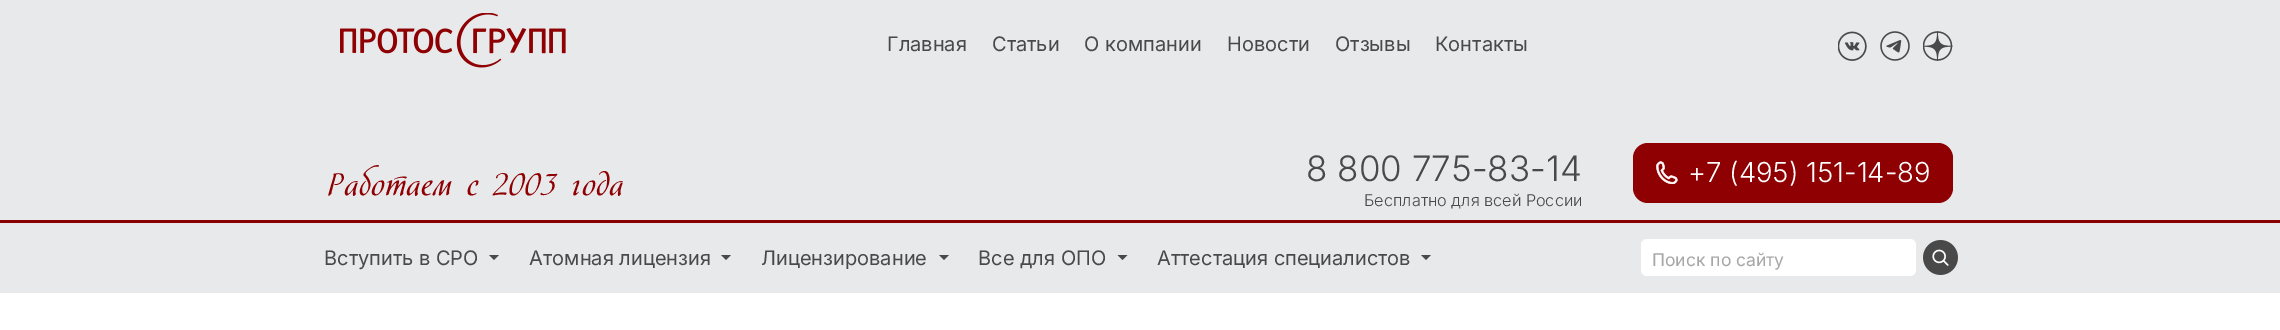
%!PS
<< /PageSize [2280 330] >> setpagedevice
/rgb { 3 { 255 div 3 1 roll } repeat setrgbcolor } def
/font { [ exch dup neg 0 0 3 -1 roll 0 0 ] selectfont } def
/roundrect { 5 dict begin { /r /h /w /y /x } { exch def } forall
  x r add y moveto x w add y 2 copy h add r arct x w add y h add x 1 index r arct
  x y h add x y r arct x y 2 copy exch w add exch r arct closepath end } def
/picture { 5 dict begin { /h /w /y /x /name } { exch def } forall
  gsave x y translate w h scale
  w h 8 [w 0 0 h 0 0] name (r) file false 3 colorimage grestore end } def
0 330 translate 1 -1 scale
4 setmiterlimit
255 255 255 rgb
0 0 2280 330 rectfill
232 233 235 rgb
0 0 2280 293 rectfill
(img/1.rgb) 340 13 226 55 picture
(img/2.rgb) 1838 31 29 30 picture
(img/3.rgb) 1880 31 30 30 picture
(img/4.rgb) 1923 31 30 30 picture
142 0 2 rgb
1633 143 320 60 15 roundrect fill
(img/5.rgb) 1656 161 22 23 picture
139 0 0 rgb
0 220 2280 3 rectfill
73 73 73 rgb
489 255 moveto 499 255 lineto 494 260 lineto closepath fill
721 255 moveto 731 255 lineto 726 260 lineto closepath fill
939 255 moveto 949 255 lineto 944 260 lineto closepath fill
1117.5 255 moveto 1127.5 255 lineto 1122.5 260 lineto closepath fill
1421 255 moveto 1431 255 lineto 1426 260 lineto closepath fill
255 255 255 rgb
1641 239 275 37 6 roundrect fill
(img/6.rgb) 1923 240 35 35 picture
/Inter-Regular 20 font
73 73 73 rgb
[
  [(Главная) 887 51]
  [(Статьи) 992 51]
  [(О компании) 1084 51]
  [(Новости) 1227 51]
  [(Отзывы) 1335 51]
  [(Контакты) 1435 51]
] { aload pop moveto show } forall
/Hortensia-Regular 31.25 font
142 0 2 rgb
328 195 moveto (Работаем с 2003 года) show
/Inter-Light 35 font
73 73 73 rgb
1306 181 moveto (8 800 775-83-14) show
/Inter-Light 16.25 font
1364 206 moveto (Бесплатно для всей России) show
/Inter-Light 27.5 font
255 255 255 rgb
1688 182 moveto (+7 \(495\) 151-14-89) show
/Inter-Regular 20 font
73 73 73 rgb
[
  [(Вступить в СРО) 324 265]
  [(Атомная лицензия) 529 265]
  [(Лицензирование) 761 265]
  [(Все для ОПО) 978 265]
  [(Аттестация специалистов) 1157 265]
] { aload pop moveto show } forall
/Inter-Regular 17.5 font
167 167 167 rgb
1652 266 moveto (Поиск по сайту) show
showpage
